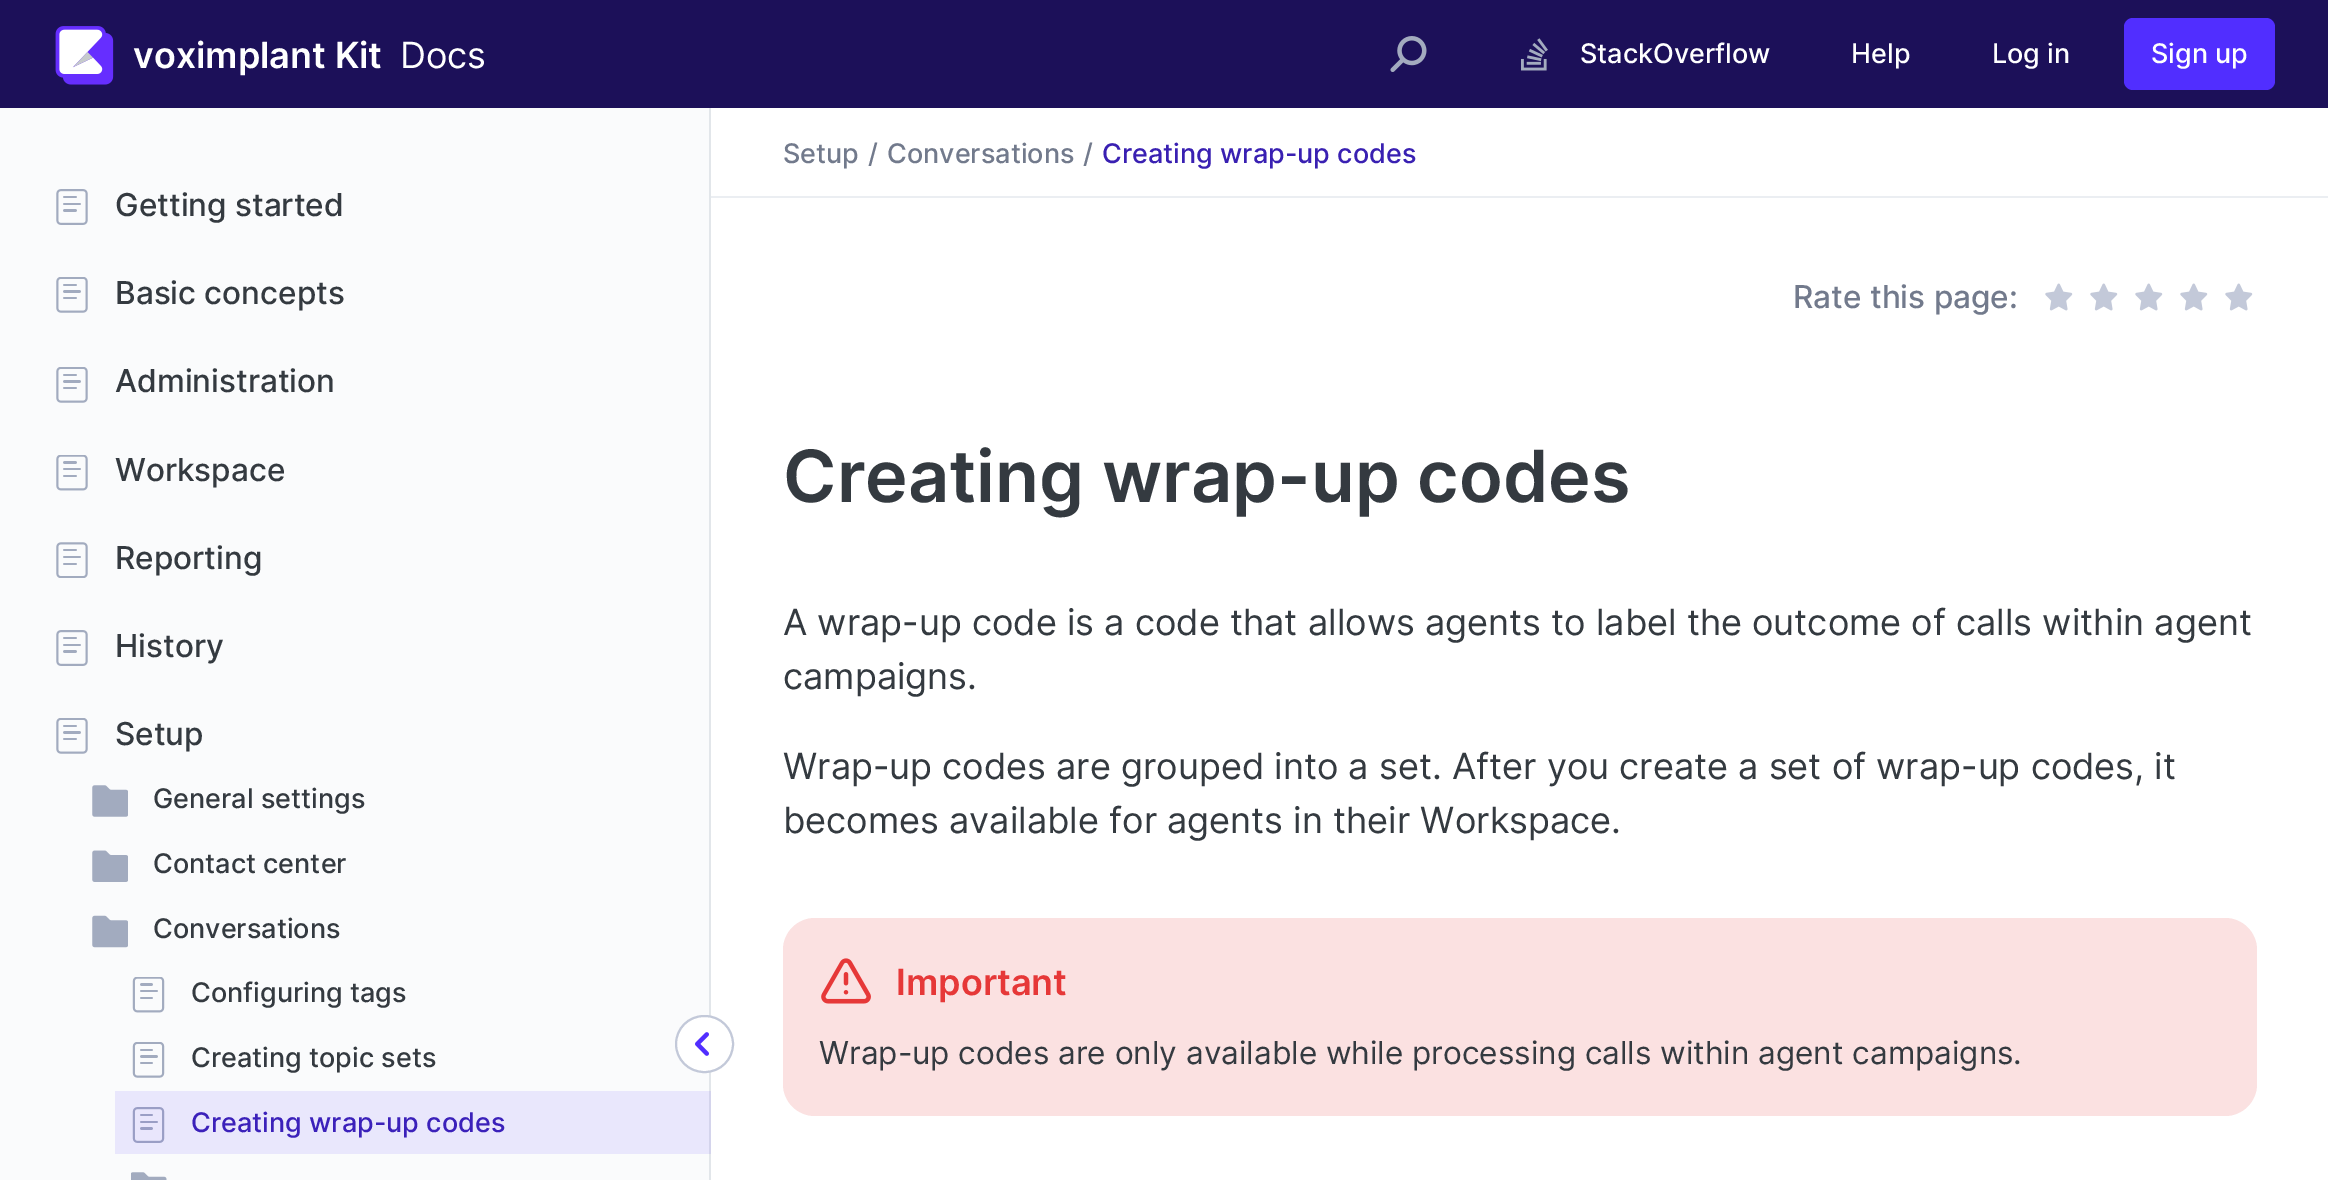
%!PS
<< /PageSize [2328 1180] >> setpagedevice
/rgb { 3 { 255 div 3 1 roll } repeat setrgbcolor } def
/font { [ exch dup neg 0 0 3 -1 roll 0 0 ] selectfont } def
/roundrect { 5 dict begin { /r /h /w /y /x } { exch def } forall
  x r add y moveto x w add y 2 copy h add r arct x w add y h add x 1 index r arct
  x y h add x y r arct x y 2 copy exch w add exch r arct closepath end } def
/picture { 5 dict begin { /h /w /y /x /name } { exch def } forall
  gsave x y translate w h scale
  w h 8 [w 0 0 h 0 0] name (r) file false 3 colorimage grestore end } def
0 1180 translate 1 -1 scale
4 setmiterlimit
255 255 255 rgb
0 0 2328 1180 rectfill
28 16 89 rgb
0 0 2328 108 rectfill
(img/1.rgb) 55 26 59 59 picture
(img/2.rgb) 1390 36 37 36 picture
(img/3.rgb) 1521 38 27 33 picture
81 46 255 rgb
2124 18 151 72 9 roundrect fill
[
  [0 108 709 1072 250 251 252]
  [115 1091 594 63 233 231 252]
  [709 108 2 1072 226 230 234]
  [709 1091 2 63 212 212 236]
] { aload pop rgb rectfill } forall
(img/4.rgb) 56 189 32 36 picture
(img/5.rgb) 56 277 32 36 picture
(img/5.rgb) 56 367 32 36 picture
(img/6.rgb) 56 455 32 36 picture
(img/7.rgb) 56 542 32 36 picture
(img/4.rgb) 56 630 32 36 picture
(img/5.rgb) 56 718 32 36 picture
(img/8.rgb) 92 785 36 32 picture
(img/9.rgb) 92 850 36 32 picture
(img/10.rgb) 92 915 36 33 picture
(img/11.rgb) 132 977 33 36 picture
(img/12.rgb) 132 1042 33 36 picture
(img/13.rgb) 132 1107 33 36 picture
(img/14.rgb) 131 1172 36 8 picture
255 255 255 rgb
676 1016 57 56 28 roundrect gsave fill grestore
195 201 217 rgb
2 setlinewidth
stroke
(img/15.rgb) 695 1032 14 24 picture
235 238 242 rgb
711 196 1617 2 rectfill
(img/16.rgb) 2045 283 28 28 picture
(img/16.rgb) 2090 283 28 28 picture
(img/16.rgb) 2135 283 28 28 picture
(img/16.rgb) 2180 283 28 28 picture
(img/16.rgb) 2225 283 28 28 picture
251 225 225 rgb
783 918 1474 198 32 roundrect fill
(img/17.rgb) 821 958 50 46 picture
/Inter-SemiBold 36 font
255 255 255 rgb
133 68 moveto (voximplant Kit) show
/Inter-Regular 36 font
400 68 moveto (Docs) show
/Inter-Medium 27 font
[
  [(StackOverflow) 1580 63]
  [(Help) 1851 63]
  [(Log in) 1992 63]
  [(Sign up) 2151 63]
] { aload pop moveto show } forall
/Inter-Medium 31.5 font
52 58 64 rgb
[
  [(Getting started) 115 216]
  [(Basic concepts) 115 304]
  [(Administration) 115 392]
  [(Workspace) 115 481]
  [(Reporting) 115 569]
  [(History) 115 657]
  [(Setup) 115 745]
] { aload pop moveto show } forall
/Inter-Medium 27 font
[
  [(General settings) 153 808]
  [(Contact center) 153 873]
  [(Conversations) 153 938]
  [(Configuring tags) 191 1002]
  [(Creating topic sets) 191 1067]
] { aload pop moveto show } forall
59 33 186 rgb
191 1132 moveto (Creating wrap-up codes) show
114 122 140 rgb
[
  [(Setup) 783 163]
  [(/) 868 163]
  [(Conversations) 887 163]
  [(/) 1083 163]
] { aload pop moveto show } forall
57 32 178 rgb
1102 163 moveto (Creating wrap-up codes) show
/Inter-Medium 31.5 font
114 122 140 rgb
1793 308 moveto (Rate this page:) show
/Inter-SemiBold 72 font
52 58 64 rgb
783 502 moveto (Creating wrap-up codes) show
/Inter-Regular 36 font
[
  [(A wrap-up code is a code that allows agents to label the outcome of calls within agent) 783 635]
  [(campaigns.) 783 689]
  [(Wrap-up codes are grouped into a set. After you create a set of wrap-up codes, it) 783 779]
  [(becomes available for agents in their Workspace.) 783 833]
] { aload pop moveto show } forall
/Inter-SemiBold 36 font
230 56 56 rgb
896 995 moveto (Important) show
/Inter-Regular 31.5 font
52 58 64 rgb
819 1064 moveto (Wrap-up codes are only available while processing calls within agent campaigns.) show
showpage
